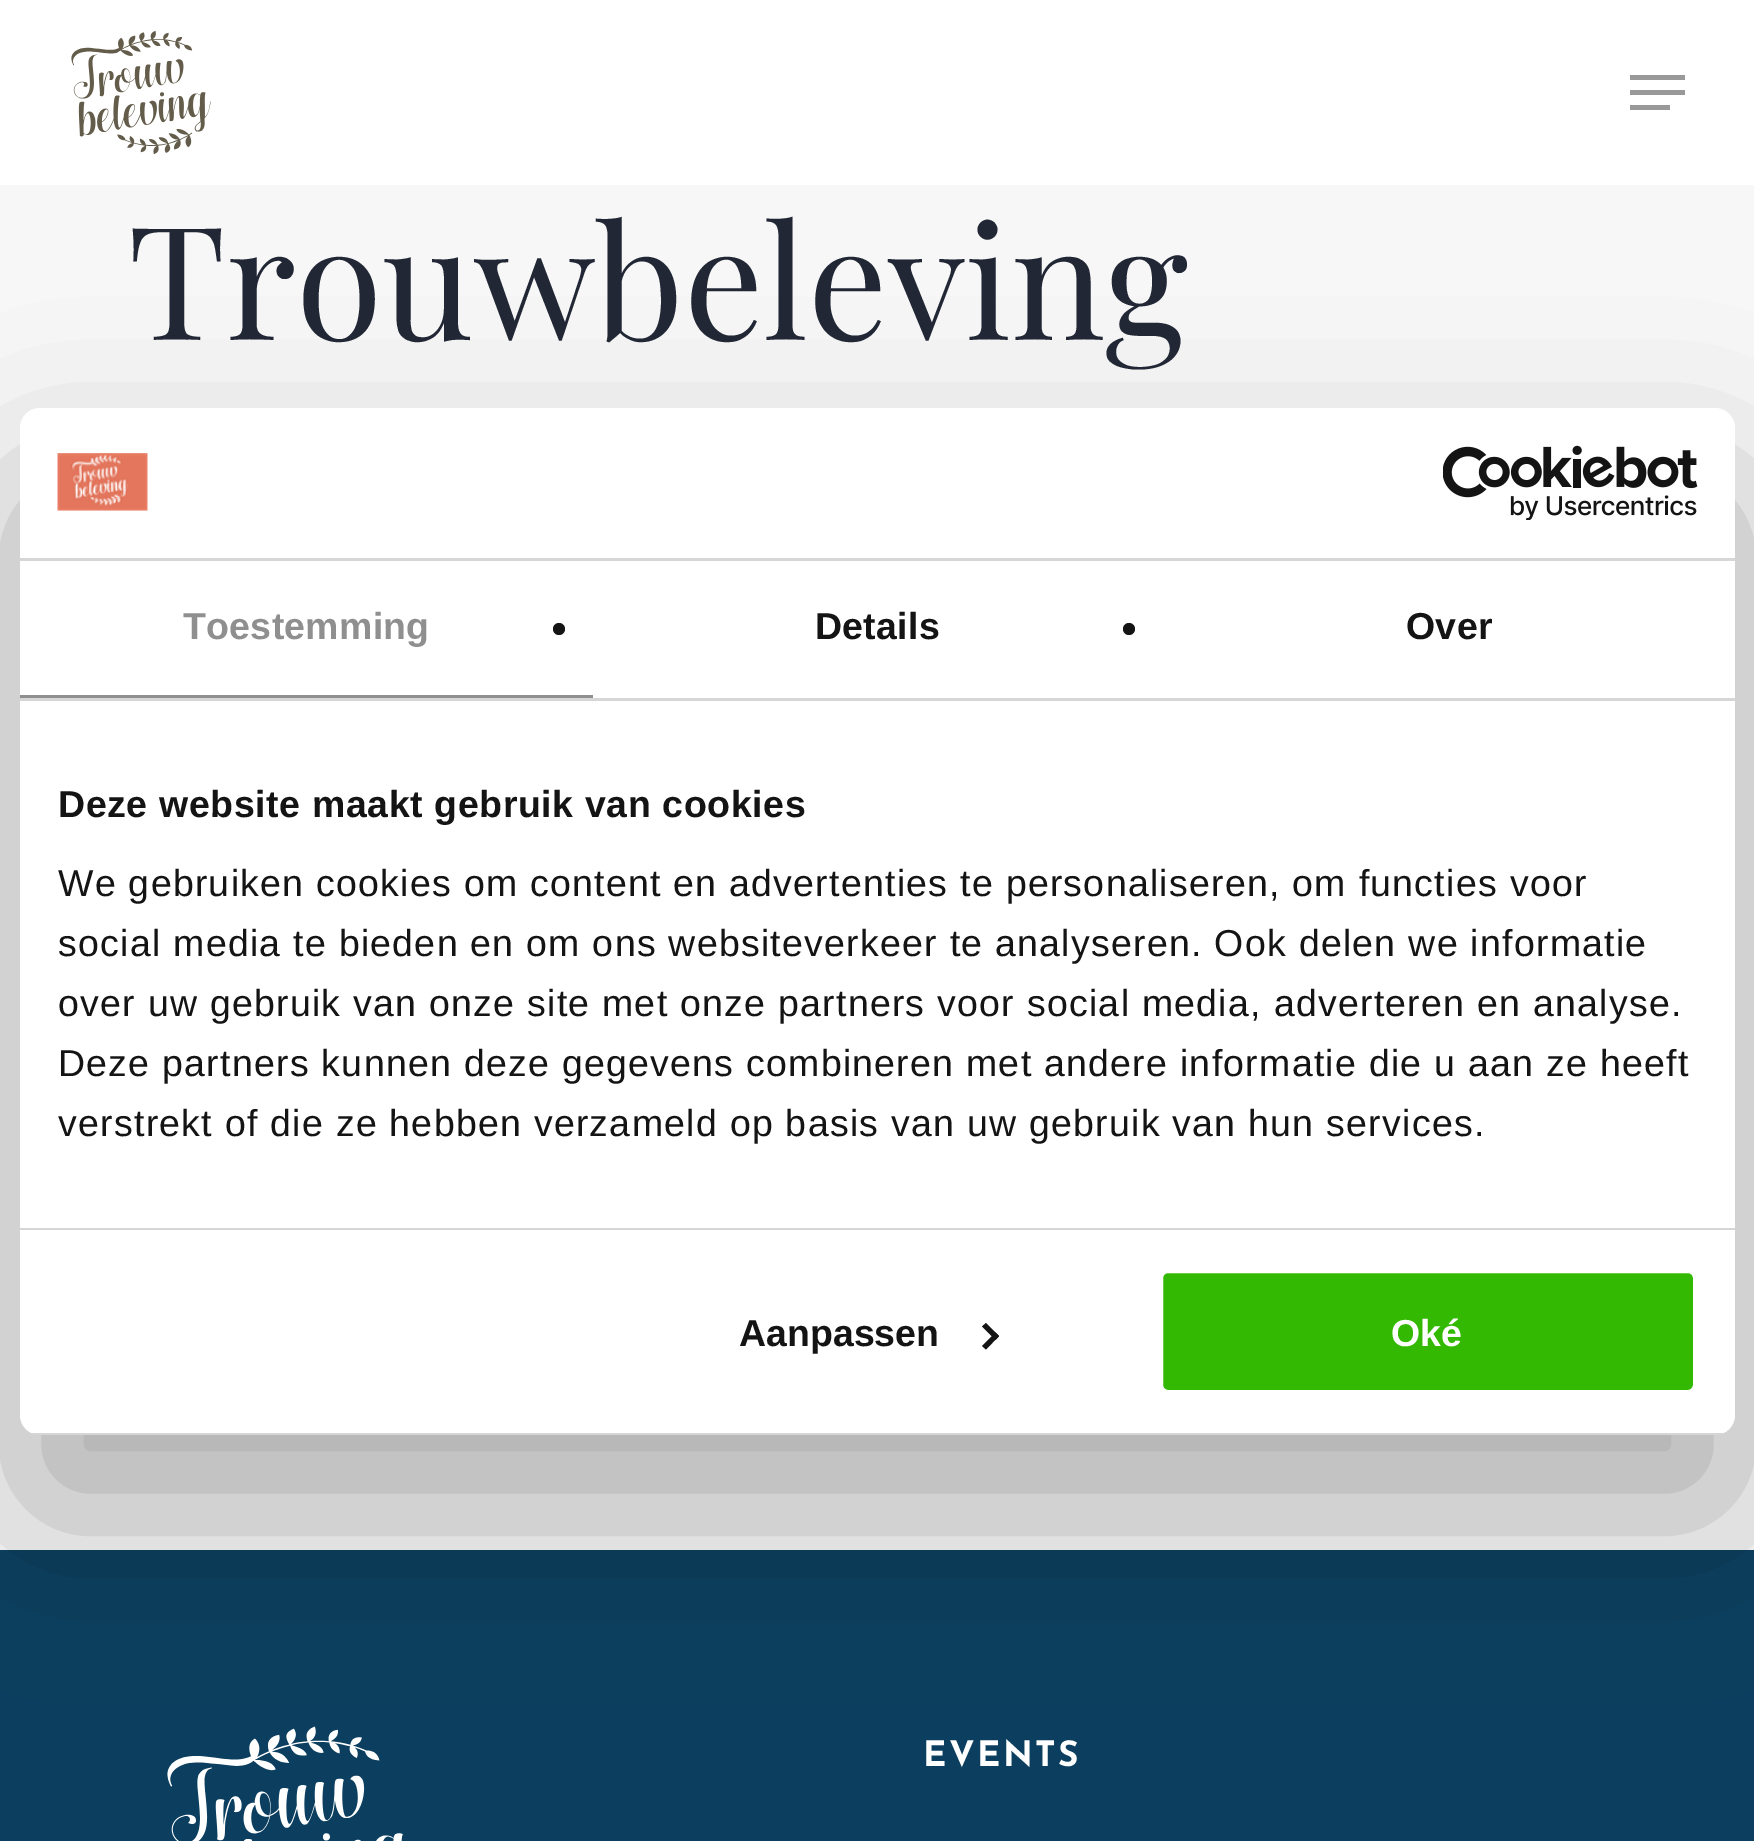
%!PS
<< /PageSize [1754 1841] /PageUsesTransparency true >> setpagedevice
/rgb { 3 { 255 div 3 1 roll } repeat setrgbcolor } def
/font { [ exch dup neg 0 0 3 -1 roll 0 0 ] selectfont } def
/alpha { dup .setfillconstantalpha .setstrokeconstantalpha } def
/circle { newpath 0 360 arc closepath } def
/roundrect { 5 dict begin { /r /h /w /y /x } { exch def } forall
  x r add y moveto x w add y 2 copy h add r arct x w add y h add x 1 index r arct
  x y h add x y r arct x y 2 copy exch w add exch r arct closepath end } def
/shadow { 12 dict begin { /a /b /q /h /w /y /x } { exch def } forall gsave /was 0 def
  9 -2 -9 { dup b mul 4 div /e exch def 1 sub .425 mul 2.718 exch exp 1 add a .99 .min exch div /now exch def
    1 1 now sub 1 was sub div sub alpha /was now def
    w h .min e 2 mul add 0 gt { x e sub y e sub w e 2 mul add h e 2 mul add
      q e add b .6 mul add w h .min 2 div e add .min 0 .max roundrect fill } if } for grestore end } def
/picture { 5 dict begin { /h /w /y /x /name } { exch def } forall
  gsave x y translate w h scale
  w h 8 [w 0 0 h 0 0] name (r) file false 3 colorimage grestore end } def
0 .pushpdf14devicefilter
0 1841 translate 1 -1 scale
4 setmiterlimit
247 247 247 rgb
0 0 1754 1841 rectfill
255 255 255 rgb
0 0 1754 185 rectfill
(img/1.rgb) 71 30 140 125 picture
[
  [1630 75 55 5 153 153 153]
  [1630 105 40 5 153 153 153]
  [1630 90 55 5 153 153 153]
  [0 1550 1754 291 12 63 95]
] { aload pop rgb rectfill } forall
(img/2.rgb) 167 1726 236 115 picture
0 0 0 rgb
20 488 1715 1027 20 85 0.3 shadow
255 255 255 rgb
20 408 1715 1027 20 roundrect fill
214 214 214 rgb
20 558 1715 3 rectfill
(img/3.rgb) 57 453 91 58 picture
(img/4.rgb) 1443 445 255 75 picture
20 698 1715 3 rectfill
143 143 143 rgb
20 695 573 3 rectfill
20 20 20 rgb
559 629 6 circle fill
1129 629 6 circle fill
214 214 214 rgb
20 1228 1715 2 rectfill
gsave
20 408 1715 1027 20 roundrect clip newpath
31 1433 1693 2 rectfill
grestore
20 20 20 rgb
986 1323 moveto 999 1336 lineto 995.5 1340 lineto 982 1326.5 lineto closepath fill
995.5 1332.5 moveto 999 1336 lineto 986 1349.5 lineto 982 1346 lineto closepath fill
51 185 1 rgb
1160.5 1270.5 535 122 7.5 roundrect gsave fill grestore
255 255 255 rgb
5 setlinewidth
stroke
/PlayfairDisplay-Regular 157.5 font
33 39 53 rgb
128 340 moveto (Trouwbeleving) show
/JosefinSans-Thin 35 font
255 255 255 rgb
923 1766 moveto 2.5 0 (EVENTS) ashow
/LiberationSans-Bold 37.5 font
143 143 143 rgb
183 639 moveto 0.25 0 (Toestemming) ashow
20 20 20 rgb
815 639 moveto 0.25 0 (Details) ashow
1406 639 moveto 0.25 0 (Over) ashow
58 817 moveto 0.6 0 (Deze website maakt gebruik van cookies) ashow
/LiberationSans-Regular 37.5 font
58 896 moveto 1.25 0 (We gebruiken cookies om content en advertenties te personaliseren, om functies voor) ashow
58 956 moveto 1.25 0 (social media te bieden en om ons websiteverkeer te analyseren. Ook delen we informatie) ashow
58 1016 moveto 1.25 0 (over uw gebruik van onze site met onze partners voor social media, adverteren en analyse.) ashow
58 1076 moveto 1.25 0 (Deze partners kunnen deze gegevens combineren met andere informatie die u aan ze heeft) ashow
58 1136 moveto 1.25 0 (verstrekt of die ze hebben verzameld op basis van uw gebruik van hun services.) ashow
/LiberationSans-Bold 37.5 font
739 1346 moveto (Aanpassen) show
255 255 255 rgb
1391 1346 moveto (Oké) show
.poppdf14devicefilter showpage
